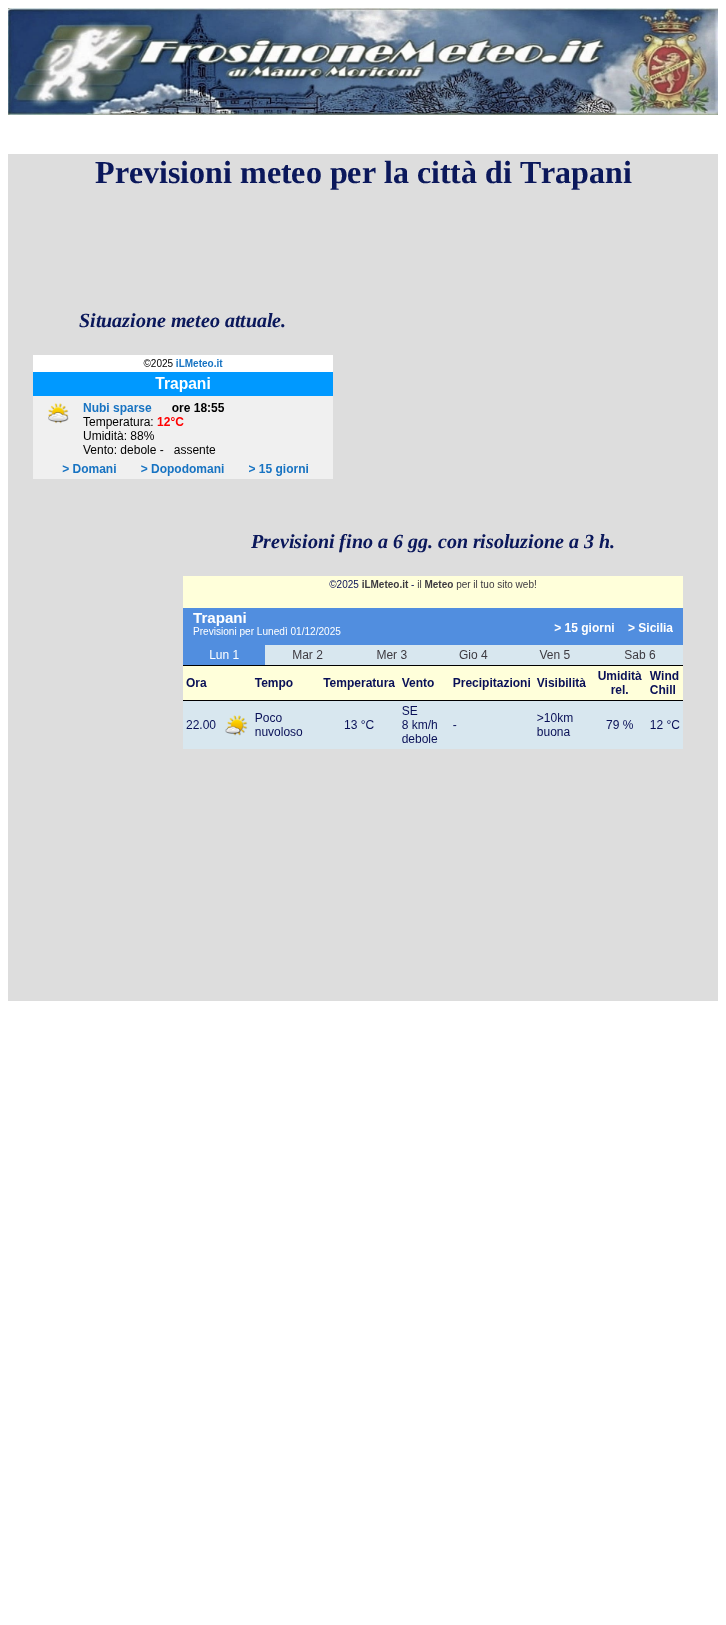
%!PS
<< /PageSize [726 1625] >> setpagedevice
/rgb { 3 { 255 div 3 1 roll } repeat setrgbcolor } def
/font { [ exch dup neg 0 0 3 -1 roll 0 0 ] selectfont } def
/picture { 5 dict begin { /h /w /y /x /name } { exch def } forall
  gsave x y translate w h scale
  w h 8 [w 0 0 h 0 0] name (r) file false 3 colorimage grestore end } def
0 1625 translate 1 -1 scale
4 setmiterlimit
255 255 255 rgb
0 0 726 1625 rectfill
(img/1.rgb) 8 8 710 107 picture
221 221 221 rgb
8 154 710 847 rectfill
(img/2.rgb) 33 355 300 124 picture
(img/3.rgb) 183 576 500 173 picture
/LiberationSerif-Bold 32 font
11 24 91 rgb
95 183 moveto (Previsioni meteo per la città di Trapani) show
/LiberationSerif-BoldItalic 20 font
79 327 moveto (Situazione meteo attuale.) show
251 548 moveto (Previsioni fino a 6 gg. con risoluzione a 3 h.) show
showpage
